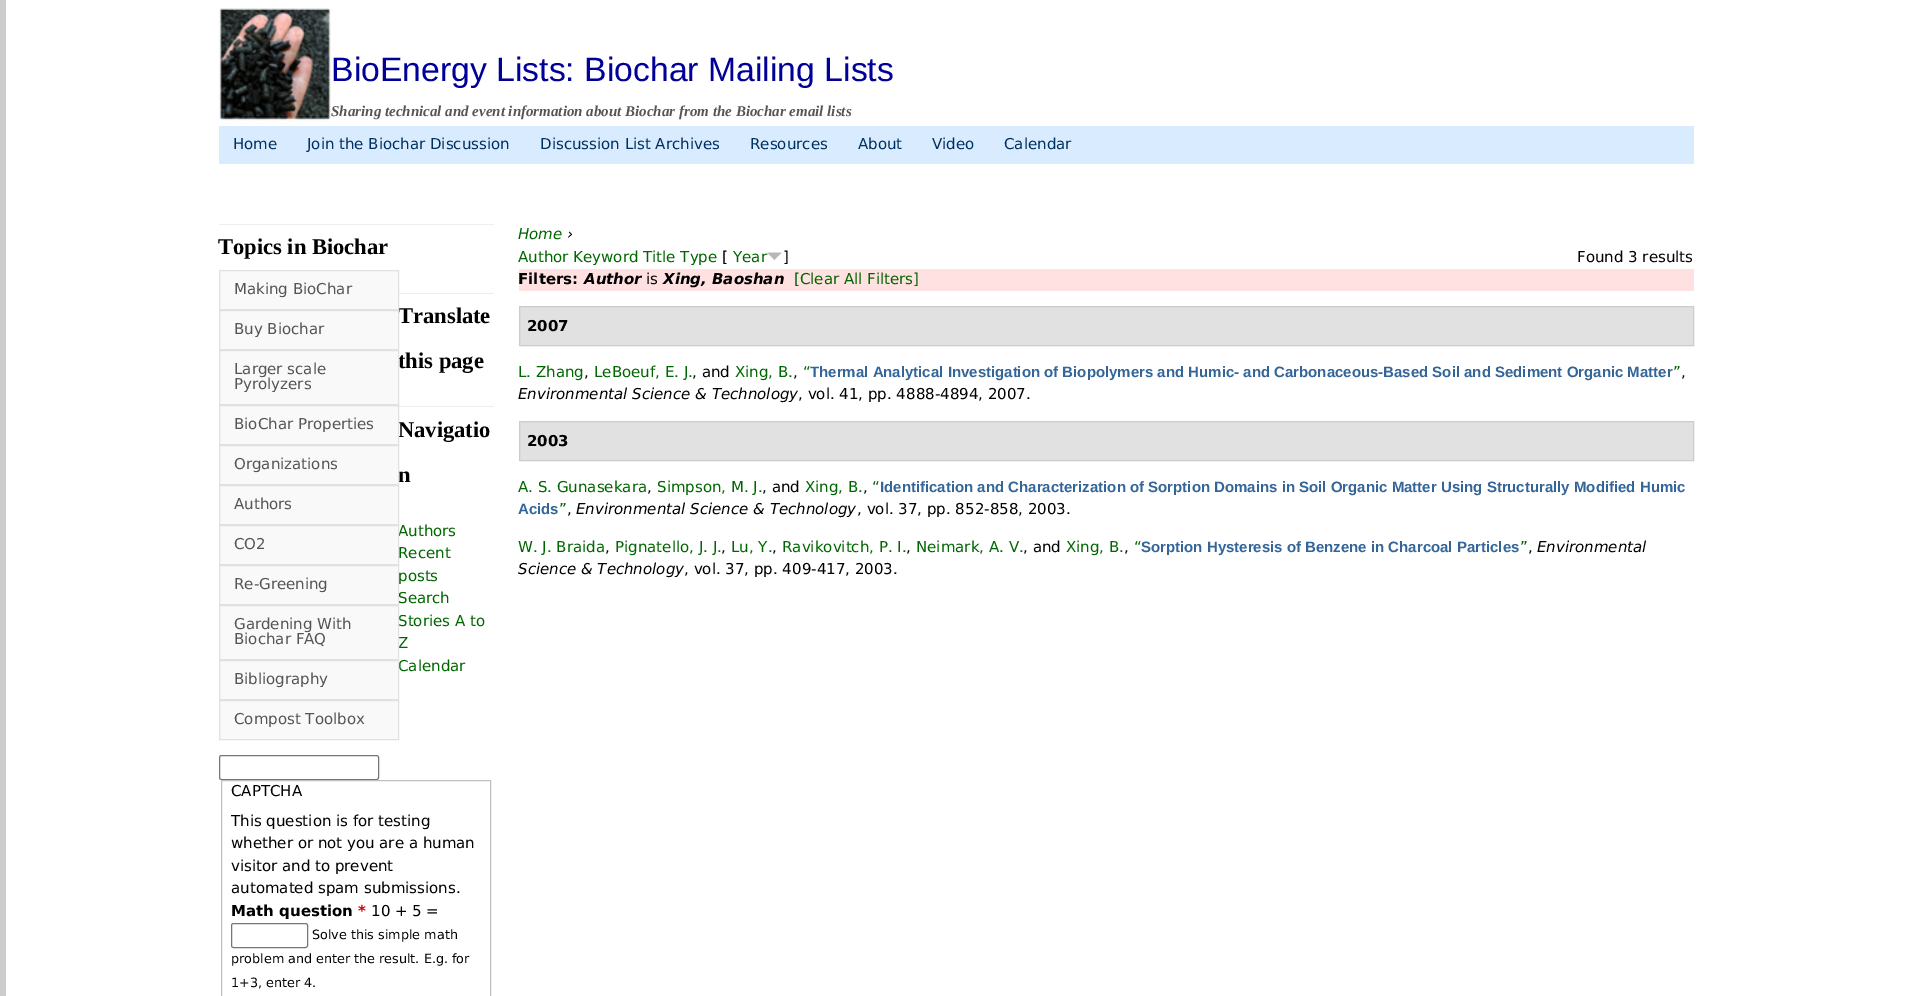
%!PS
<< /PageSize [1905 996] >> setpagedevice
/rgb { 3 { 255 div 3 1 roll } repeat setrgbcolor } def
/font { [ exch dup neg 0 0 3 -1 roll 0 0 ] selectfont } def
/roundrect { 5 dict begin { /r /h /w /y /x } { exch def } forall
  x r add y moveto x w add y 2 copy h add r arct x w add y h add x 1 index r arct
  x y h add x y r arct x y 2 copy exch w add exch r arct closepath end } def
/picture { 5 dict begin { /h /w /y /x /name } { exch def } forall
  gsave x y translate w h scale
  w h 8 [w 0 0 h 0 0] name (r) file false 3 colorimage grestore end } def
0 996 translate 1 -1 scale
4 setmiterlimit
255 255 255 rgb
0 0 1905 996 rectfill
204 204 204 rgb
0 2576 moveto 0 0 lineto 6 0 lineto 6 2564 lineto closepath fill
(img/1.rgb) 219 8 112 113 picture
217 236 255 rgb
219 126 1475 38 rectfill
238 238 238 rgb
219 224 275 1 rectfill
249 249 249 rgb
219.5 565.5 moveto 398.5 565.5 lineto 398.5 604.5 lineto 219.5 604.5 lineto closepath gsave fill grestore
225 225 225 rgb
stroke
249 249 249 rgb
219.5 700.5 moveto 398.5 700.5 lineto 398.5 739.5 lineto 219.5 739.5 lineto closepath gsave fill grestore
225 225 225 rgb
stroke
238 238 238 rgb
399 293 95 1 rectfill
399 406 95 1 rectfill
118 118 118 rgb
219.5 755.5 159 24 2 roundrect stroke
192 192 192 rgb
221.5 780.5 269 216 rectstroke
118 118 118 rgb
231.5 923.5 76 24 2 roundrect stroke
(img/2.rgb) 767 252 15 9 picture
255 225 225 rgb
519 269 1175 22 rectfill
225 225 225 rgb
519.5 306.5 moveto 1693.5 306.5 lineto 1693.5 345.5 lineto 519.5 345.5 lineto closepath gsave fill grestore
204 204 204 rgb
stroke
225 225 225 rgb
519.5 421.5 moveto 1693.5 421.5 lineto 1693.5 460.5 lineto 519.5 460.5 lineto closepath gsave fill grestore
204 204 204 rgb
stroke
/LiberationSans-Regular 33.75 font
0 0 153 rgb
331 81 moveto (BioEnergy Lists: Biochar Mailing Lists) show
/LiberationSerif-BoldItalic 15 font
85 85 85 rgb
331 116 moveto (Sharing technical and event information about Biochar from the Biochar email lists) show
/DejaVuSans-Regular 15 font
0 48 95 rgb
[
  [(Home) 233 149]
  [(Join the Biochar Discussion) 307 149]
  [(Discussion List Archives) 540 149]
  [(Resources) 750 149]
  [(About) 858 149]
  [(Video) 932 149]
  [(Calendar) 1004 149]
] { aload pop moveto show } forall
/LiberationSerif-Bold 22.5 font
0 0 0 rgb
218 254 moveto (Topics in Biochar) show
/DejaVuSans-Regular 15 font
85 85 85 rgb
234 589 moveto (Re-Greening) show
234 724 moveto (Compost Toolbox) show
/LiberationSerif-Bold 22.5 font
0 0 0 rgb
398 323 moveto (Translate) show
249 249 249 rgb
219.5 310.5 moveto 398.5 310.5 lineto 398.5 349.5 lineto 219.5 349.5 lineto closepath gsave fill grestore
225 225 225 rgb
stroke
/DejaVuSans-Regular 15 font
85 85 85 rgb
234 334 moveto (Buy Biochar) show
249 249 249 rgb
219.5 270.5 moveto 398.5 270.5 lineto 398.5 309.5 lineto 219.5 309.5 lineto closepath gsave fill grestore
225 225 225 rgb
stroke
85 85 85 rgb
234 294 moveto (Making BioChar) show
/LiberationSerif-Bold 22.5 font
0 0 0 rgb
398 368 moveto (this page) show
249 249 249 rgb
219.5 350.5 moveto 398.5 350.5 lineto 398.5 404.5 lineto 219.5 404.5 lineto closepath gsave fill grestore
225 225 225 rgb
stroke
/DejaVuSans-Regular 15 font
85 85 85 rgb
234 389 moveto (Pyrolyzers) show
234 374 moveto (Larger scale) show
/LiberationSerif-Bold 22.5 font
0 0 0 rgb
398 437 moveto (Navigatio) show
249 249 249 rgb
219.5 405.5 moveto 398.5 405.5 lineto 398.5 444.5 lineto 219.5 444.5 lineto closepath gsave fill grestore
225 225 225 rgb
stroke
/DejaVuSans-Regular 15 font
85 85 85 rgb
234 429 moveto (BioChar Properties) show
/LiberationSerif-Bold 22.5 font
0 0 0 rgb
398 482 moveto (n) show
249 249 249 rgb
219.5 445.5 moveto 398.5 445.5 lineto 398.5 484.5 lineto 219.5 484.5 lineto closepath gsave fill grestore
225 225 225 rgb
stroke
/DejaVuSans-Regular 15 font
85 85 85 rgb
234 469 moveto (Organizations) show
0 102 0 rgb
398 536 moveto (Authors) show
249 249 249 rgb
219.5 525.5 moveto 398.5 525.5 lineto 398.5 564.5 lineto 219.5 564.5 lineto closepath gsave fill grestore
225 225 225 rgb
stroke
85 85 85 rgb
234 549 moveto (CO2) show
249 249 249 rgb
219.5 485.5 moveto 398.5 485.5 lineto 398.5 524.5 lineto 219.5 524.5 lineto closepath gsave fill grestore
225 225 225 rgb
stroke
85 85 85 rgb
234 509 moveto (Authors) show
0 102 0 rgb
[
  [(Recent) 398 558]
  [(posts) 398 581]
  [(Search) 398 603]
  [(Stories A to) 398 626]
  [(Z) 398 648]
  [(Calendar) 398 671]
] { aload pop moveto show } forall
249 249 249 rgb
219.5 660.5 moveto 398.5 660.5 lineto 398.5 699.5 lineto 219.5 699.5 lineto closepath gsave fill grestore
225 225 225 rgb
stroke
85 85 85 rgb
234 684 moveto (Bibliography) show
249 249 249 rgb
219.5 605.5 moveto 398.5 605.5 lineto 398.5 659.5 lineto 219.5 659.5 lineto closepath gsave fill grestore
225 225 225 rgb
stroke
85 85 85 rgb
234 644 moveto (Biochar FAQ) show
234 629 moveto (Gardening With) show
0 0 0 rgb
[
  [(CAPTCHA) 231 796]
  [(This question is for testing) 231 826]
  [(whether or not you are a human) 231 848]
  [(visitor and to prevent) 231 871]
  [(automated spam submissions.) 231 893]
] { aload pop moveto show } forall
/DejaVuSans-Bold 15 font
231 916 moveto (Math question) show
204 0 0 rgb
358 916 moveto (*) show
/DejaVuSans-Regular 15 font
0 0 0 rgb
371 916 moveto (10 + 5 =) show
/DejaVuSans-Regular 12.75 font
[
  [(Solve this simple math) 312 939]
  [(problem and enter the result. E.g. for) 231 963]
  [(1+3, enter 4.) 231 987]
] { aload pop moveto show } forall
/DejaVuSans-Italic 15 font
0 102 0 rgb
518 239 moveto (Home) show
0 0 0 rgb
567 239 moveto (›) show
/DejaVuSans-Regular 15 font
0 102 0 rgb
518 262 moveto (Author Keyword Title Type) show
0 0 0 rgb
722 262 moveto ([) show
0 102 0 rgb
733 262 moveto (Year) show
0 0 0 rgb
783 262 moveto (]) show
1577 262 moveto (Found 3 results) show
/DejaVuSans-Bold 15 font
518 284 moveto (Filters:) show
/DejaVuSans-BoldItalic 15 font
584 284 moveto (Author) show
/DejaVuSans-Regular 15 font
646 284 moveto (is) show
/DejaVuSans-BoldItalic 15 font
663 284 moveto (Xing, Baoshan) show
/DejaVuSans-Regular 15 font
0 102 0 rgb
794 284 moveto ([Clear All Filters]) show
/DejaVuSans-Bold 15 font
0 0 0 rgb
527 331 moveto (2007) show
/DejaVuSans-Regular 15 font
0 102 0 rgb
518 377 moveto (L. Zhang) show
594 377 moveto (LeBoeuf, E. J.) show
0 0 0 rgb
692 377 moveto (, and) show
0 102 0 rgb
735 377 moveto (Xing, B.) show
803 377 moveto (“) show
/LiberationSans-Bold 15 font
51 101 153 rgb
810 377 moveto (Thermal Analytical Investigation of Biopolymers and Humic- and Carbonaceous-Based Soil and Sediment Organic Matter) show
/DejaVuSans-Regular 15 font
0 102 0 rgb
1673 377 moveto (”) show
0 0 0 rgb
[
  [(,) 584 377]
  [(,) 793 377]
  [(,) 1681 377]
] { aload pop moveto show } forall
/DejaVuSans-Italic 15 font
518 399 moveto (Environmental Science & Technology) show
/DejaVuSans-Regular 15 font
798 399 moveto (, vol. 41, pp. 4888-4894, 2007.) show
/DejaVuSans-Bold 15 font
527 446 moveto (2003) show
/DejaVuSans-Regular 15 font
0 102 0 rgb
518 492 moveto (A. S. Gunasekara) show
0 0 0 rgb
647 492 moveto (,) show
0 102 0 rgb
657 492 moveto (Simpson, M. J.) show
0 0 0 rgb
762 492 moveto (, and) show
0 102 0 rgb
805 492 moveto (Xing, B.) show
0 0 0 rgb
863 492 moveto (,) show
0 102 0 rgb
872 492 moveto (“) show
/LiberationSans-Bold 15 font
51 101 153 rgb
880 492 moveto (Identification and Characterization of Sorption Domains in Soil Organic Matter Using Structurally Modified Humic) show
518 514 moveto (Acids) show
/DejaVuSans-Regular 15 font
0 102 0 rgb
559 514 moveto (”) show
/DejaVuSans-Italic 15 font
0 0 0 rgb
576 514 moveto (Environmental Science & Technology) show
/DejaVuSans-Regular 15 font
857 514 moveto (, vol. 37, pp. 852-858, 2003.) show
567 514 moveto (,) show
0 102 0 rgb
[
  [(W. J. Braida) 518 552]
  [(Pignatello, J. J.) 615 552]
  [(Lu, Y.) 731 552]
  [(Ravikovitch, P. I.) 782 552]
  [(Neimark, A. V.) 916 552]
] { aload pop moveto show } forall
0 0 0 rgb
1023 552 moveto (, and) show
0 102 0 rgb
1066 552 moveto (Xing, B.) show
1134 552 moveto (“) show
/LiberationSans-Bold 15 font
51 101 153 rgb
1141 552 moveto (Sorption Hysteresis of Benzene in Charcoal Particles) show
/DejaVuSans-Regular 15 font
0 102 0 rgb
1520 552 moveto (”) show
/DejaVuSans-Italic 15 font
0 0 0 rgb
1537 552 moveto (Environmental) show
/DejaVuSans-Regular 15 font
[
  [(,) 605 552]
  [(,) 721 552]
  [(,) 772 552]
  [(,) 906 552]
  [(,) 1124 552]
  [(,) 1528 552]
] { aload pop moveto show } forall
/DejaVuSans-Italic 15 font
518 574 moveto (Science & Technology) show
/DejaVuSans-Regular 15 font
684 574 moveto (, vol. 37, pp. 409-417, 2003.) show
showpage
